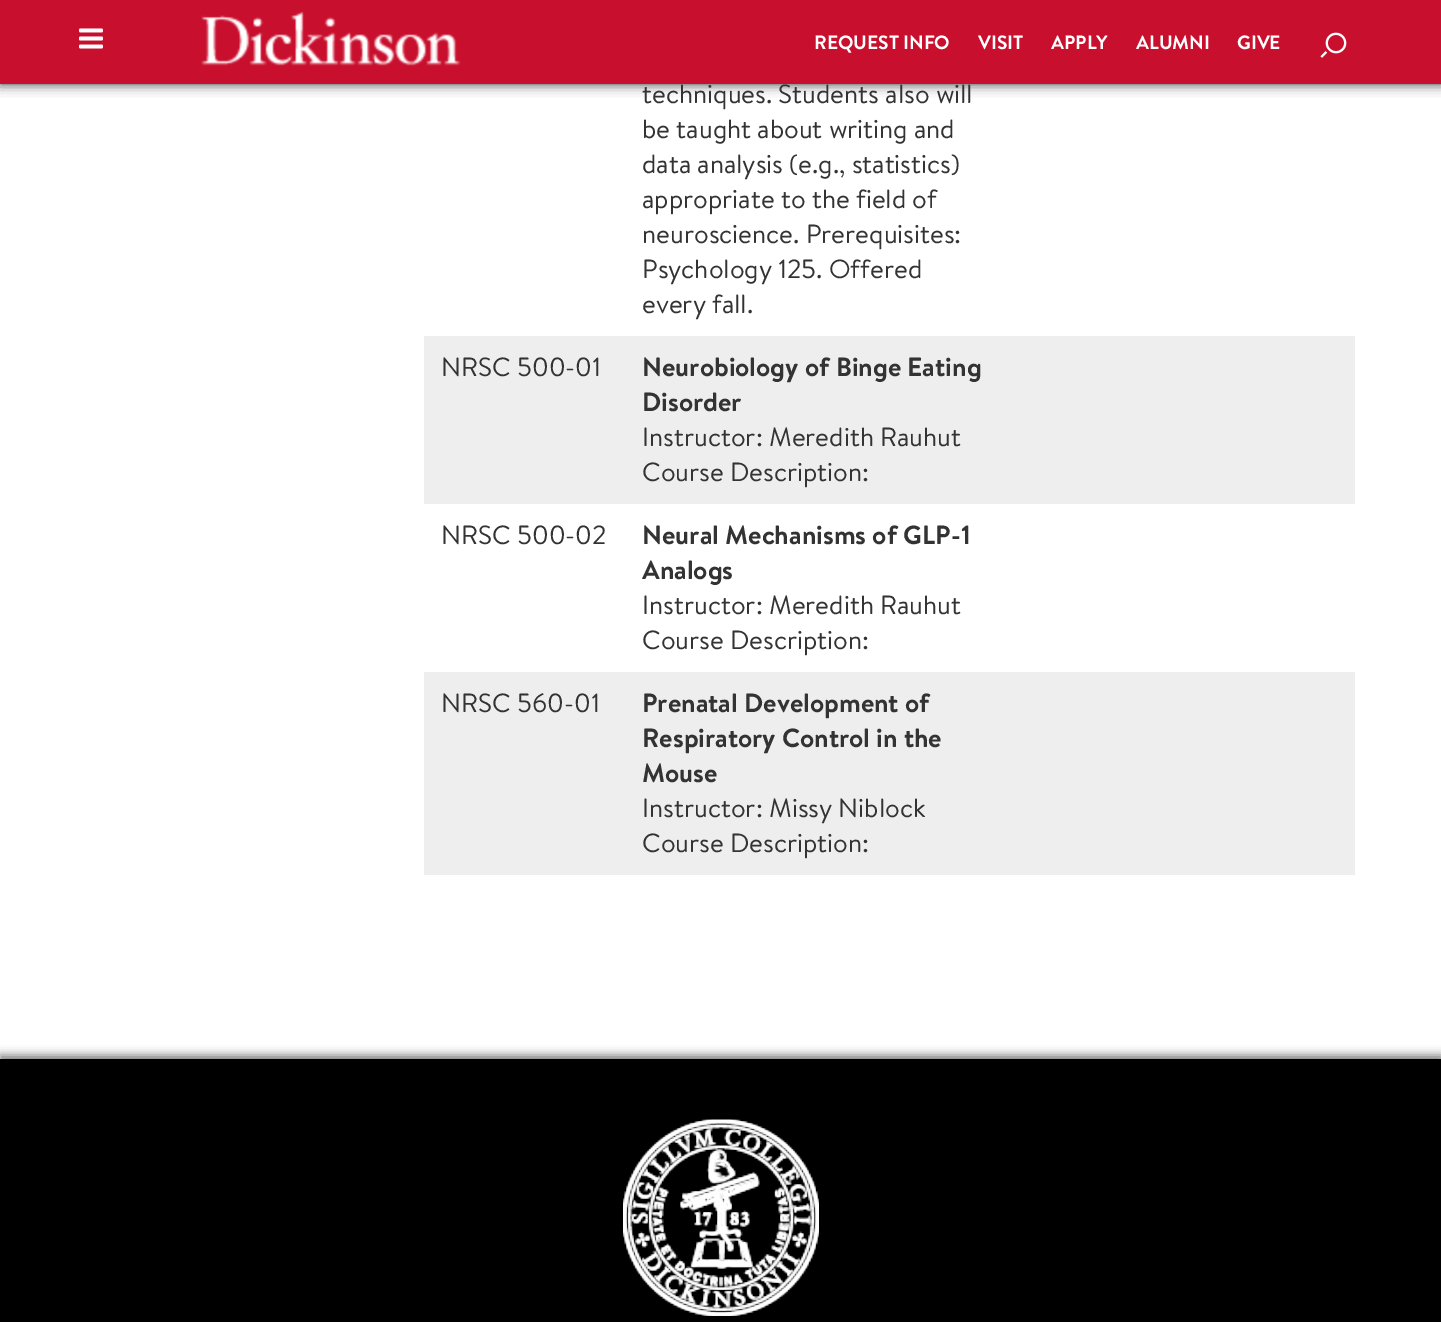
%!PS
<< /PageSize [1441 1322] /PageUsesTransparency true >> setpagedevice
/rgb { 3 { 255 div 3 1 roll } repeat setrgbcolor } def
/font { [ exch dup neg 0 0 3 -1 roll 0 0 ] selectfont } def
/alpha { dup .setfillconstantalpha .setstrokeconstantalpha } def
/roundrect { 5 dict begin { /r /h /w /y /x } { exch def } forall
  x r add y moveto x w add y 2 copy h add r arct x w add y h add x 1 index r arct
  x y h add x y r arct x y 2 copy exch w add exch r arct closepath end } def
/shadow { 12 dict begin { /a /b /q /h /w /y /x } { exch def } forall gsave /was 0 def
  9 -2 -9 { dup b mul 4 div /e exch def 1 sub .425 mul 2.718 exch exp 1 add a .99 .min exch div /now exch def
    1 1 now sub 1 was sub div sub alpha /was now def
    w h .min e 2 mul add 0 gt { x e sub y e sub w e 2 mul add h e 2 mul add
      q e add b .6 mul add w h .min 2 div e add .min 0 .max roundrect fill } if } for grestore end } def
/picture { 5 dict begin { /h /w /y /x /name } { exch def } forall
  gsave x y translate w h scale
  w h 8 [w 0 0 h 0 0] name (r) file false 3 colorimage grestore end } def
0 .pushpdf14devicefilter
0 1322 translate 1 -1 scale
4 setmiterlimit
255 255 255 rgb
0 0 1441 1322 rectfill
0 0 0 rgb
0 0 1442 84 0 6 0.8 shadow
200 16 46 rgb
0 0 1441 84 rectfill
(img/1.rgb) 79 28 24 21 picture
(img/2.rgb) 201 12 260 54 picture
(img/3.rgb) 1320 32 27 26 picture
238 238 238 rgb
424 336 931 168 rectfill
424 672 931 203 rectfill
0 0 0 rgb
0 1055 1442 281 0 4.5 0.5 shadow
0 1059 1441 263 rectfill
(img/4.rgb) 623 1119 196 197 picture
(img/5.rgb) 623 1119 196 197 picture
/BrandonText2-Regular 19.25 font
255 255 255 rgb
[
  [(REQUEST INFO) 814 49]
  [(VISIT) 978 49]
  [(APPLY) 1051 49]
  [(ALUMNI) 1136 49]
  [(GIVE) 1237 49]
] { aload pop moveto show } forall
/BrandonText-Regular 26.25 font
51 51 51 rgb
[
  [(techniques. Students also will) 642 103]
  [(be taught about writing and) 642 138]
  [(data analysis \(e.g., statistics\)) 642 173]
  [(appropriate to the field of) 642 208]
  [(neuroscience. Prerequisites:) 642 243]
  [(Psychology 125. Offered) 642 278]
  [(every fall.) 642 313]
  [(NRSC 500-01) 441 376]
] { aload pop moveto show } forall
/BrandonText2-Regular 26.25 font
642 376 moveto (Neurobiology of Binge Eating) show
642 411 moveto (Disorder) show
/BrandonText-Regular 26.25 font
[
  [(Instructor: Meredith Rauhut) 642 446]
  [(Course Description:) 642 481]
  [(NRSC 500-02) 441 544]
] { aload pop moveto show } forall
/BrandonText2-Regular 26.25 font
642 544 moveto (Neural Mechanisms of GLP-1) show
642 579 moveto (Analogs) show
/BrandonText-Regular 26.25 font
[
  [(Instructor: Meredith Rauhut) 642 614]
  [(Course Description:) 642 649]
  [(NRSC 560-01) 441 712]
] { aload pop moveto show } forall
/BrandonText2-Regular 26.25 font
[
  [(Prenatal Development of) 642 712]
  [(Respiratory Control in the) 642 747]
  [(Mouse) 642 782]
] { aload pop moveto show } forall
/BrandonText-Regular 26.25 font
642 817 moveto (Instructor: Missy Niblock) show
642 852 moveto (Course Description:) show
.poppdf14devicefilter showpage
